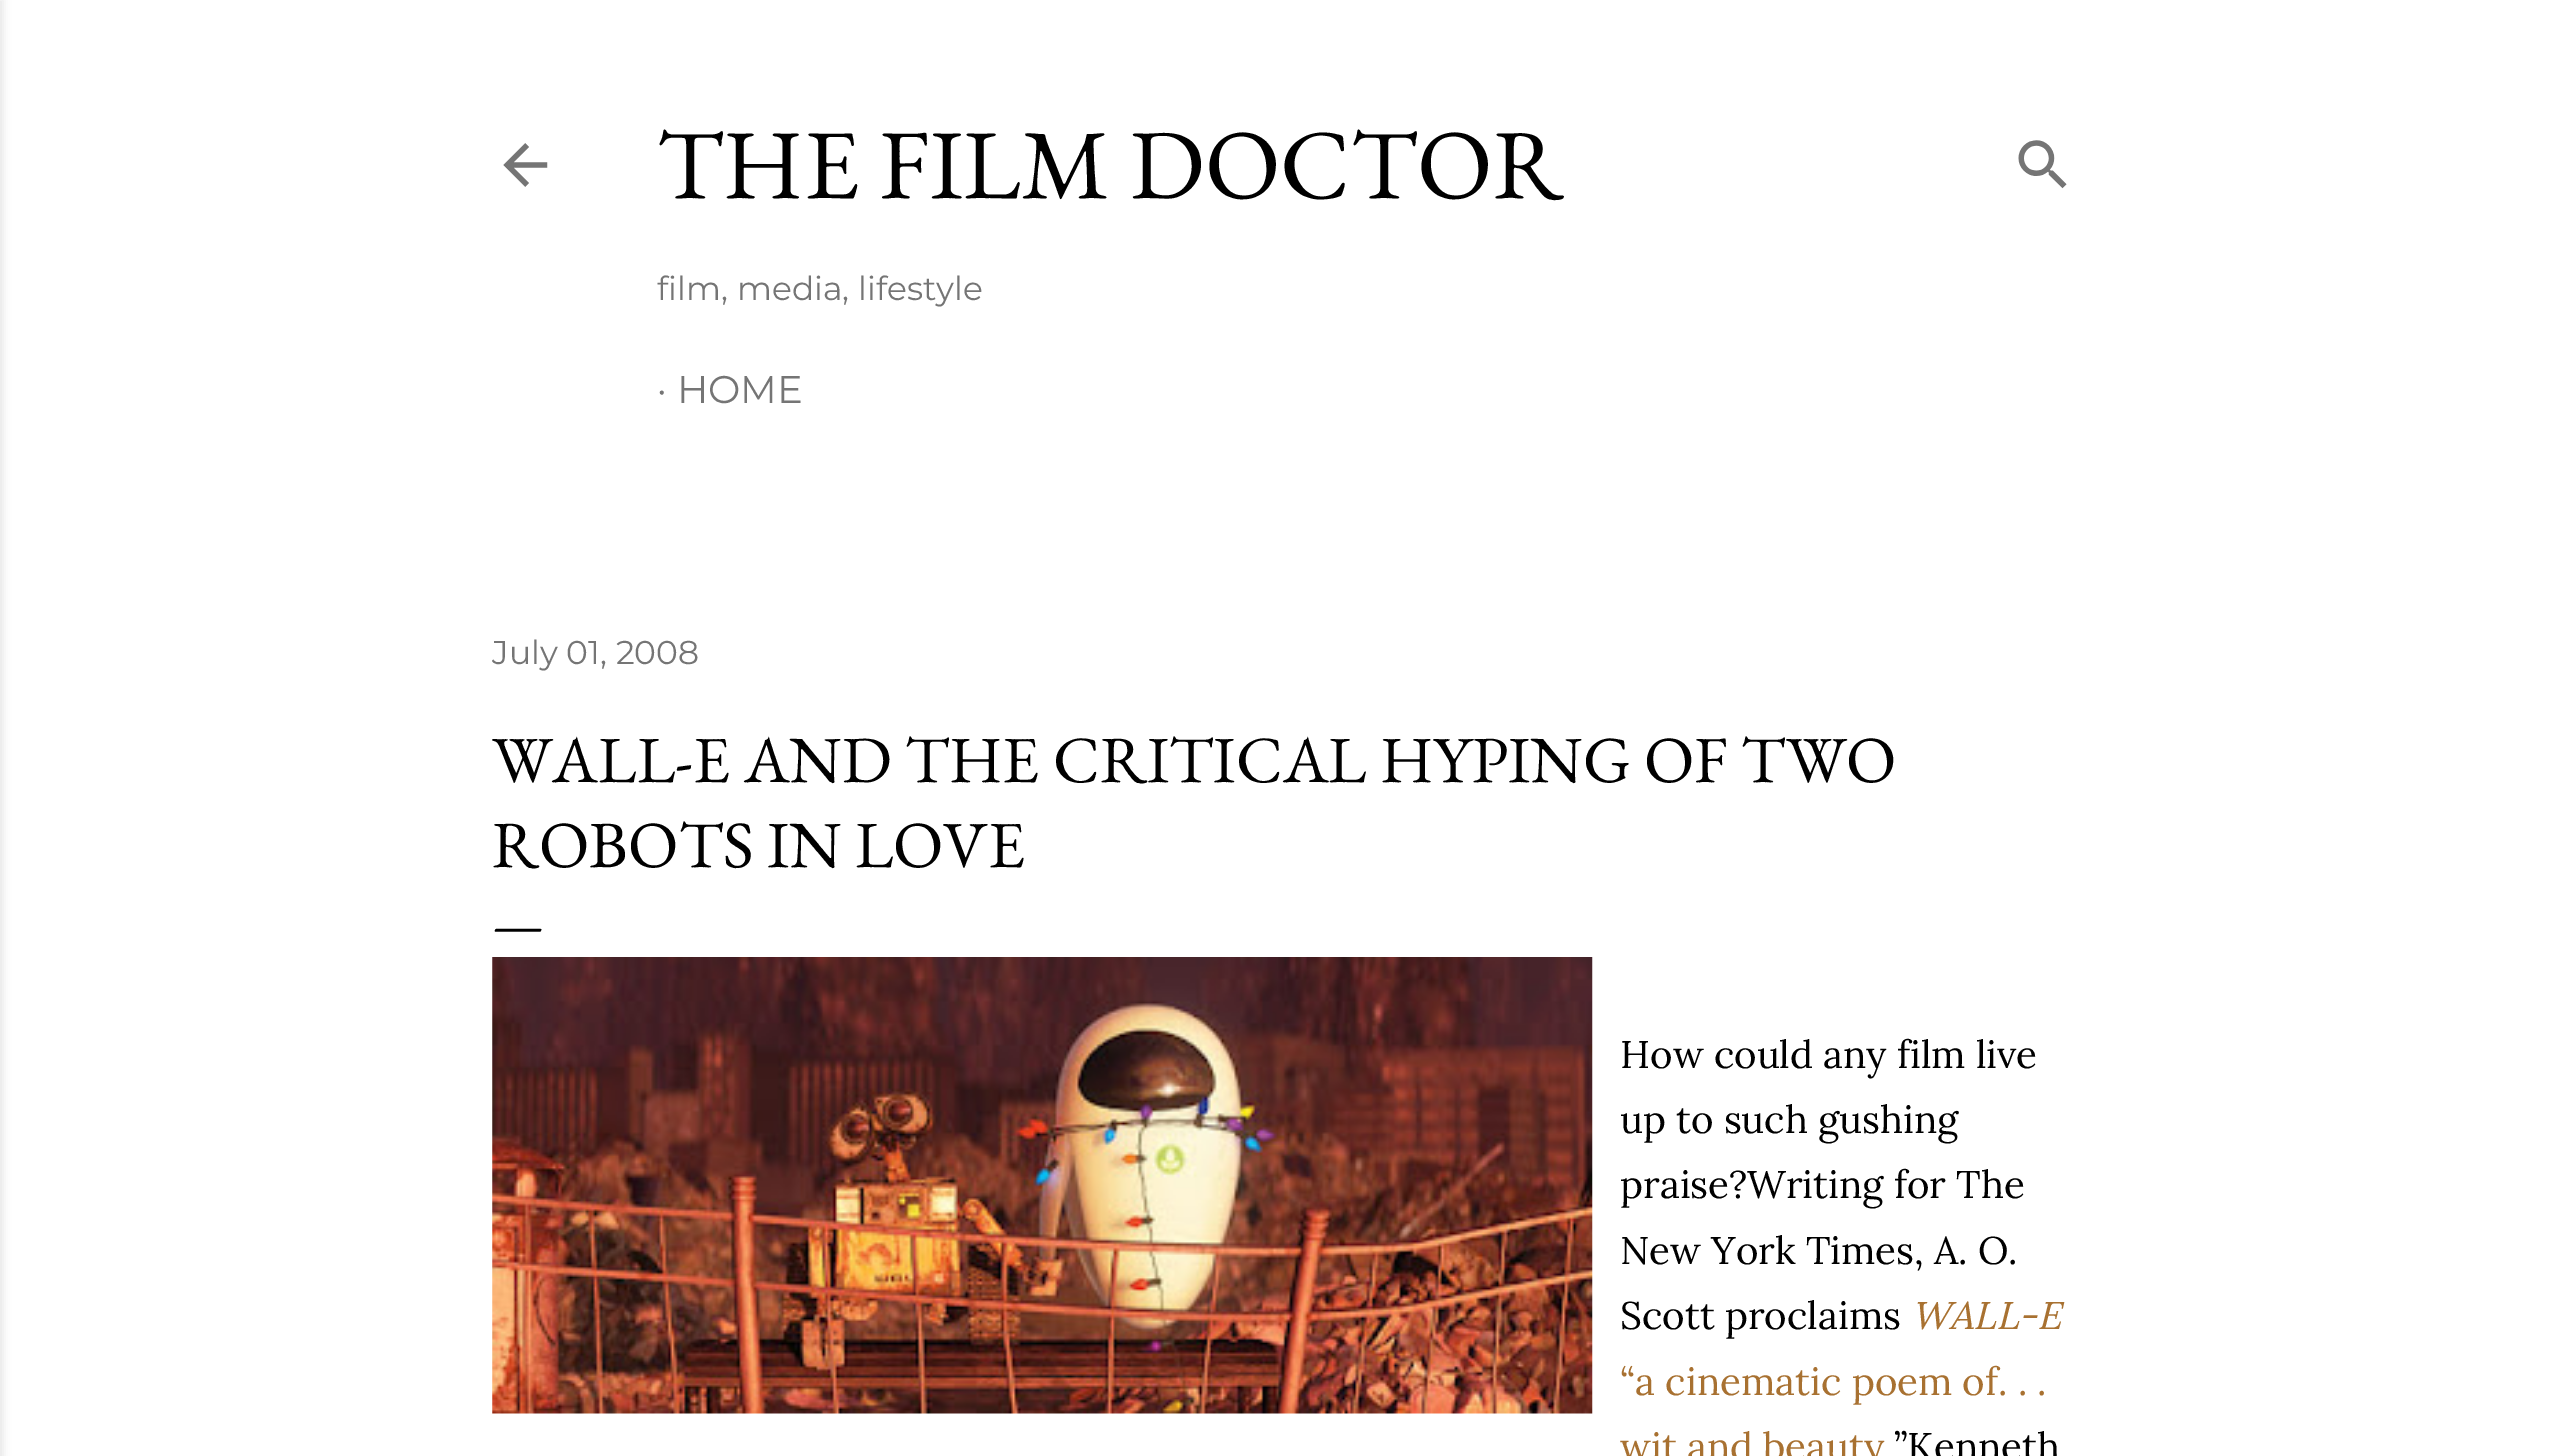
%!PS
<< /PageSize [2568 1456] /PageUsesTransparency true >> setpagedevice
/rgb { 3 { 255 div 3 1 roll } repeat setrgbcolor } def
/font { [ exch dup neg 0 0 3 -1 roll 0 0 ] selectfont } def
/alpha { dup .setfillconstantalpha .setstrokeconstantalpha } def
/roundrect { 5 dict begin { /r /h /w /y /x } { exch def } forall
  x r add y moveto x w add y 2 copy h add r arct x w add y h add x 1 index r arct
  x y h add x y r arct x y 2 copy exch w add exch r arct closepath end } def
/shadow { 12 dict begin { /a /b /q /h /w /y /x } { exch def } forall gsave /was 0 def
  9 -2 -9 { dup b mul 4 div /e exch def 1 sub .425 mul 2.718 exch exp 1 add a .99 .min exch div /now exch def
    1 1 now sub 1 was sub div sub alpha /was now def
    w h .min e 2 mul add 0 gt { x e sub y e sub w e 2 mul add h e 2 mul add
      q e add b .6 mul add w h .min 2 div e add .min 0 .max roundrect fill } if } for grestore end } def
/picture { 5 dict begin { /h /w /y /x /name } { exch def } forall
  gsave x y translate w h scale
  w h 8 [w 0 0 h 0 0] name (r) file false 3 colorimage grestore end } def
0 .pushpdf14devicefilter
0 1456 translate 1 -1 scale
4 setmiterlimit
255 255 255 rgb
0 0 2568 1456 rectfill
0 0 0 rgb
-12 0 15 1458 0 4 0.1 shadow
(img/1.rgb) 503 143 45 44 picture
(img/2.rgb) 2018 140 49 49 picture
(img/3.rgb) 492 957 1101 457 picture
/EBGaramond-Regular 99 font
657 198 moveto (THE FILM DOCTOR) show
/Montserrat-Regular 33 font
117 117 117 rgb
657 300 moveto (film, media, lifestyle) show
/Montserrat-Regular 38.5 font
657 403 moveto (· HOME) show
/Montserrat-Regular 33 font
492 664 moveto (July 01, 2008) show
/EBGaramond-Regular 66 font
0 0 0 rgb
492 782 moveto (WALL-E AND THE CRITICAL HYPING OF TWO) show
492 867 moveto (ROBOTS IN LOVE) show
/EBGaramond-Regular 55 font
492 942 moveto (—) show
/Lora-Regular 38.5 font
[
  [(How could any film live) 1620 1068]
  [(up to such gushing) 1620 1133]
  [(praise?Writing for The) 1620 1198]
  [(New York Times, A. O.) 1620 1264]
  [(Scott proclaims) 1620 1329]
] { aload pop moveto show } forall
/Lora-Italic 38.5 font
168 113 49 rgb
1911 1329 moveto (WALL-E) show
/Lora-Regular 38.5 font
1620 1395 moveto (“a cinematic poem of. . .) show
1620 1460 moveto (wit and beauty) show
0 0 0 rgb
1894 1460 moveto (”Kenneth) show
.poppdf14devicefilter showpage
